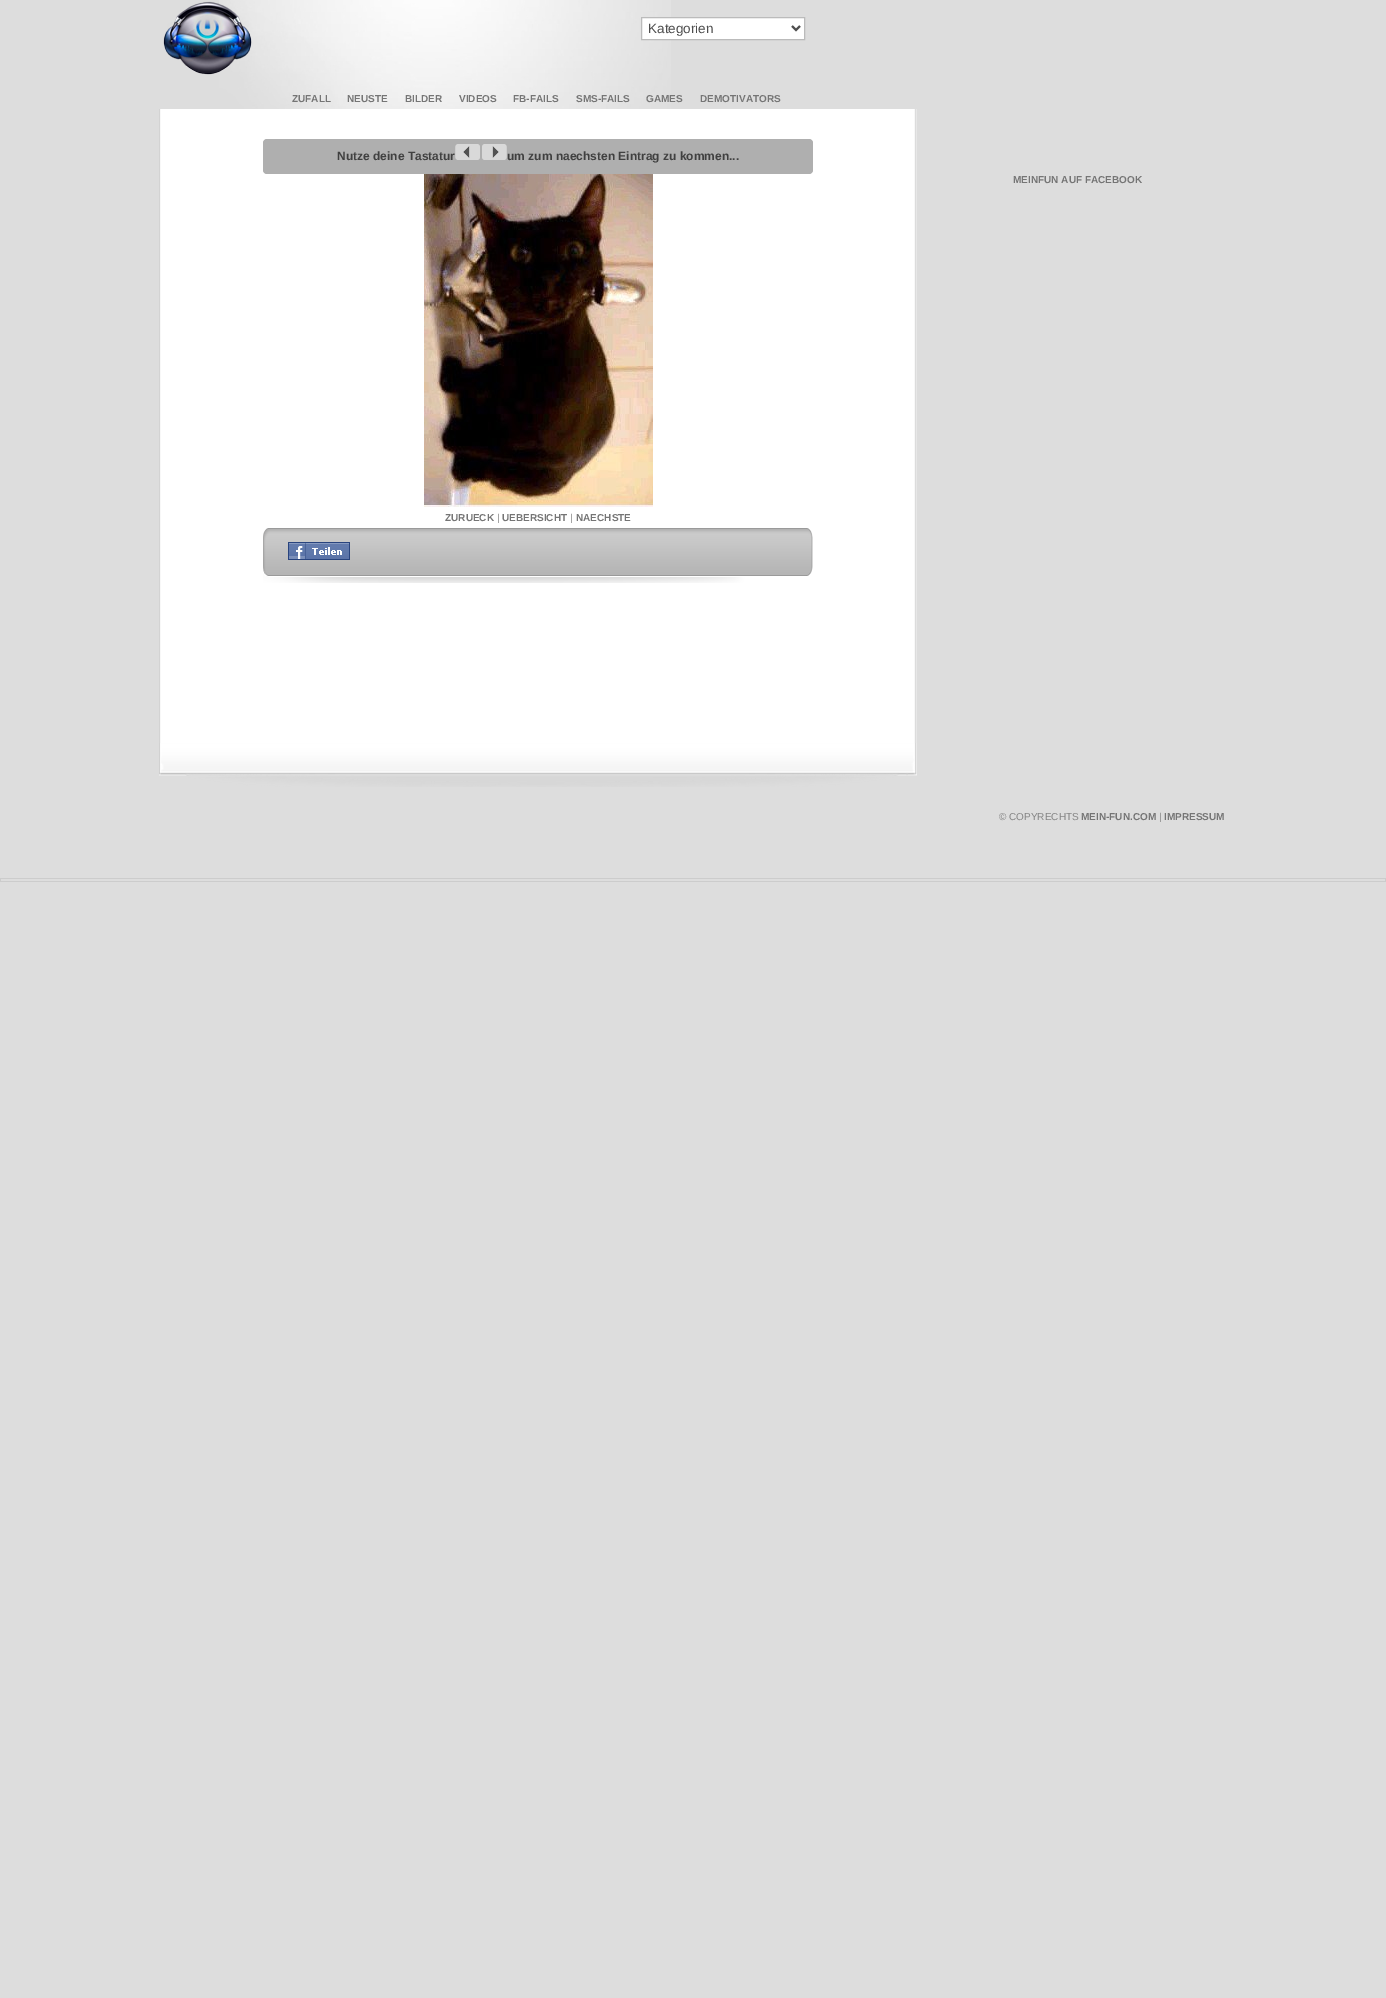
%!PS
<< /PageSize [1386 1998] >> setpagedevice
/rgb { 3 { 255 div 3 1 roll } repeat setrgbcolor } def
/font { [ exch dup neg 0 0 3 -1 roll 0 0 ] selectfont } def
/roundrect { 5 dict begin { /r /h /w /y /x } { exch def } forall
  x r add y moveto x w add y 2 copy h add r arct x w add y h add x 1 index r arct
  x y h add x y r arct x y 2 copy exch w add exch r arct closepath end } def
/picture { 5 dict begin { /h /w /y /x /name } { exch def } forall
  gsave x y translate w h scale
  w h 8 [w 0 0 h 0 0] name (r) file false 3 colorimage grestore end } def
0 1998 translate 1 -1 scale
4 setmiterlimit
221 221 221 rgb
0 0 1386 1998 rectfill
(img/1.rgb) 219 0 452 109 picture
(img/2.rgb) 163 1 89 74 picture
255 255 255 rgb
641.5 17.5 moveto 804.5 17.5 lineto 804.5 39.5 lineto 641.5 39.5 lineto closepath gsave fill grestore
187 187 187 rgb
stroke
78 78 78 rgb
2 setlinewidth
792 26 moveto 796 30 lineto 800 26 lineto stroke
(img/3.rgb) 159 109 758 634 picture
175 175 175 rgb
263 139 550 35 4 roundrect fill
(img/4.rgb) 455 144 52 16 picture
(img/5.rgb) 424 174 229 333 picture
(img/6.rgb) 263 528 550 55 picture
(img/7.rgb) 288 542 62 18 picture
(img/8.rgb) 159 743 758 44 picture
[
  [0 878 1386 1 204 204 204]
  [1385 878 1 4 204 204 204]
  [0 881 1386 1 204 204 204]
  [0 878 1 4 204 204 204]
] { aload pop rgb rectfill } forall
/LiberationSans-Regular 13.5 font
78 78 78 rgb
648 33 moveto (Kategorien) show
/LiberationSans-Bold 10 font
117 117 117 rgb
[
  [(ZUFALL) 292 102]
  [(NEUSTE) 347 102]
  [(BILDER) 405 102]
  [(VIDEOS) 459 102]
  [(FB-FAILS) 513 102]
  [(SMS-FAILS) 576 102]
  [(GAMES) 646 102]
  [(DEMOTIVATORS) 700 102]
] { aload pop moveto show } forall
/LiberationSans-Bold 12 font
64 64 64 rgb
337 160 moveto (Nutze deine Tastatur) show
507 160 moveto (um zum naechsten Eintrag zu kommen...) show
/LiberationSans-Bold 10 font
117 117 117 rgb
445 521 moveto (ZURUECK) show
/LiberationSans-Regular 10 font
133 133 133 rgb
497 521 moveto (|) show
/LiberationSans-Bold 10 font
117 117 117 rgb
502 521 moveto (UEBERSICHT) show
/LiberationSans-Regular 10 font
133 133 133 rgb
570 521 moveto (|) show
/LiberationSans-Bold 10 font
117 117 117 rgb
576 521 moveto (NAECHSTE) show
1013 183 moveto (MEINFUN AUF FACEBOOK) show
/LiberationSans-Regular 10 font
133 133 133 rgb
999 820 moveto (© COPYRECHTS) show
/LiberationSans-Bold 10 font
117 117 117 rgb
1081 820 moveto (MEIN-FUN.COM) show
/LiberationSans-Regular 10 font
133 133 133 rgb
1159 820 moveto (|) show
/LiberationSans-Bold 10 font
117 117 117 rgb
1164 820 moveto (IMPRESSUM) show
showpage
